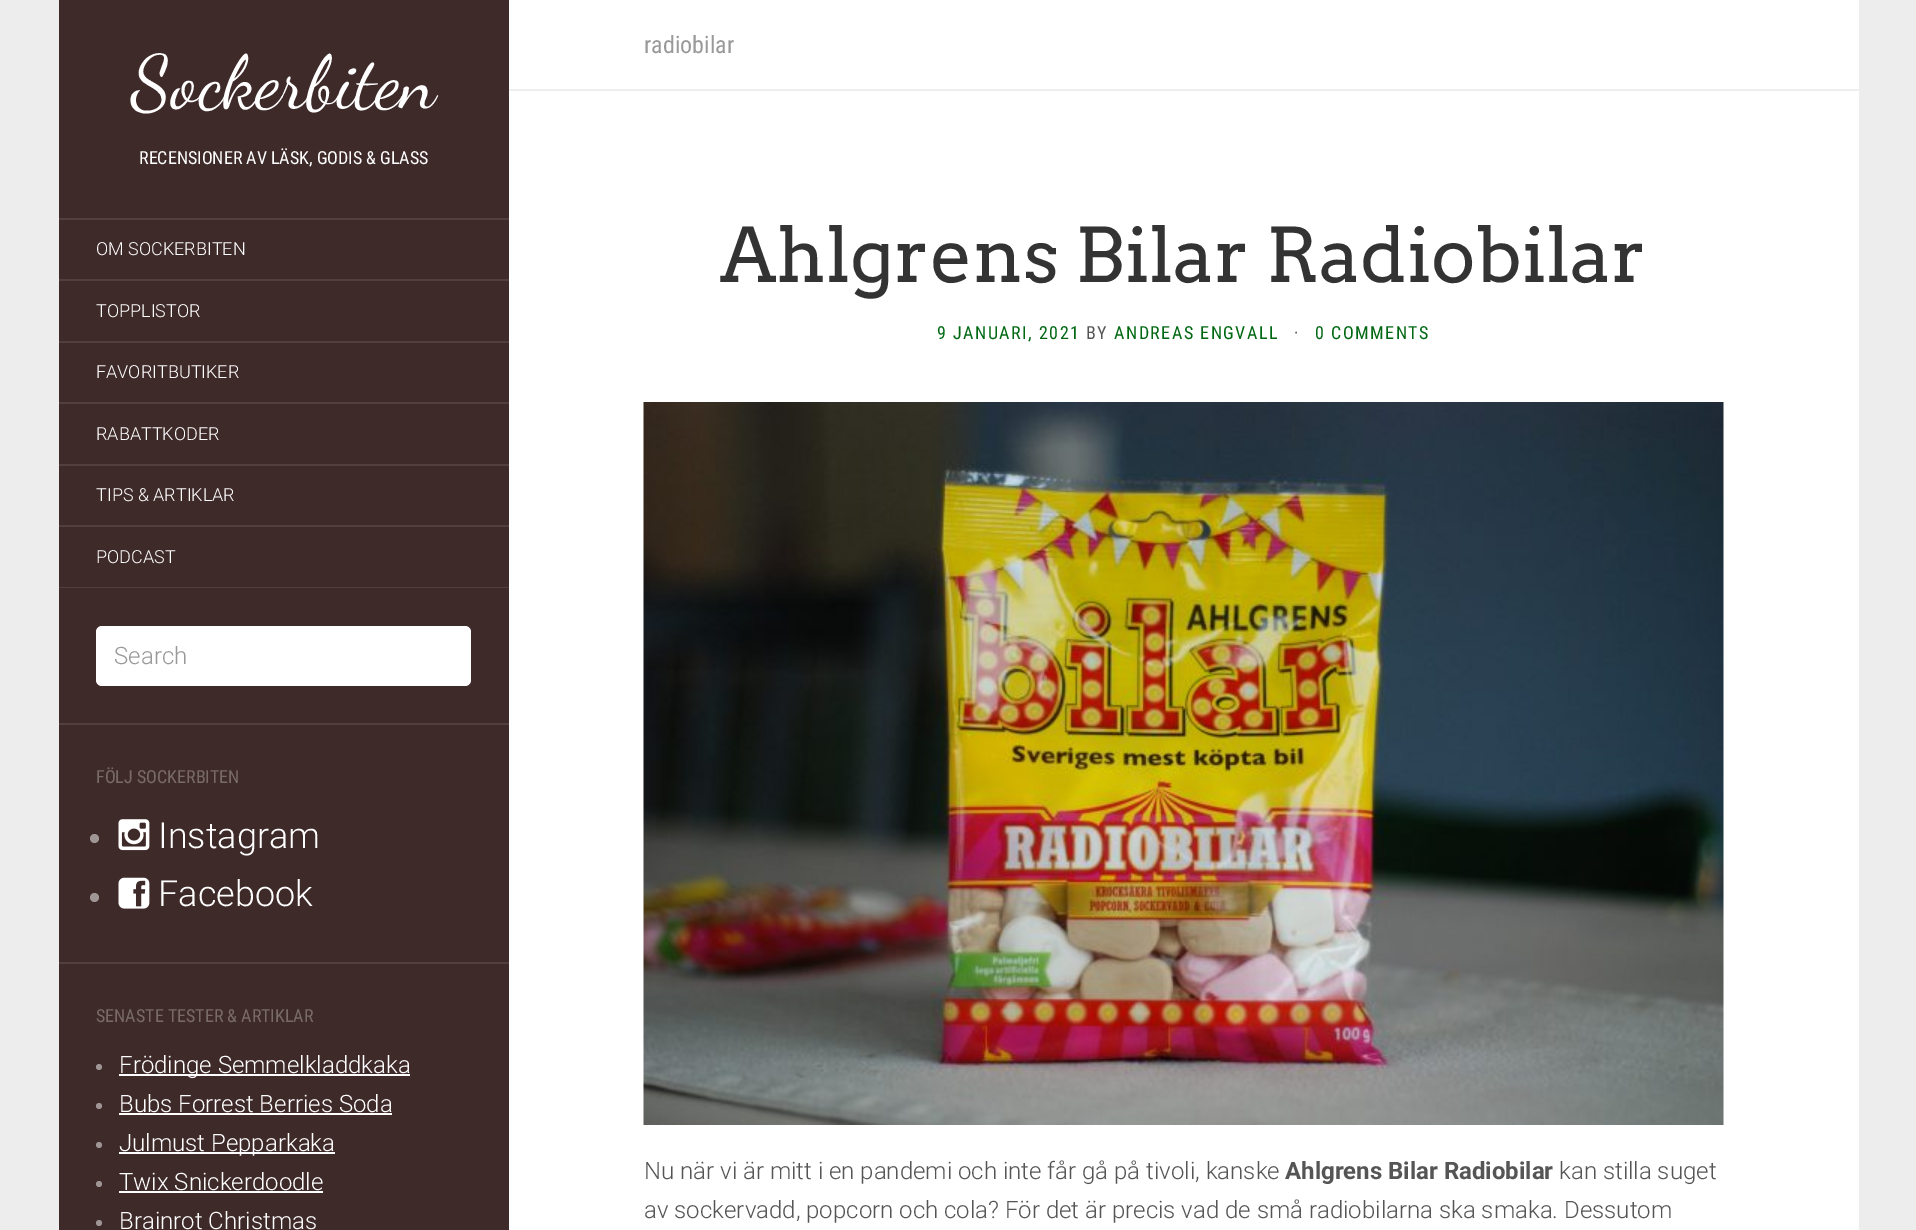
%!PS
<< /PageSize [1916 1230] >> setpagedevice
/rgb { 3 { 255 div 3 1 roll } repeat setrgbcolor } def
/font { [ exch dup neg 0 0 3 -1 roll 0 0 ] selectfont } def
/circle { newpath 0 360 arc closepath } def
/roundrect { 5 dict begin { /r /h /w /y /x } { exch def } forall
  x r add y moveto x w add y 2 copy h add r arct x w add y h add x 1 index r arct
  x y h add x y r arct x y 2 copy exch w add exch r arct closepath end } def
/picture { 5 dict begin { /h /w /y /x /name } { exch def } forall
  gsave x y translate w h scale
  w h 8 [w 0 0 h 0 0] name (r) file false 3 colorimage grestore end } def
0 1230 translate 1 -1 scale
4 setmiterlimit
237 237 237 rgb
0 0 1916 1230 rectfill
[
  [509 0 1350 1230 255 255 255]
  [59 0 450 587 63 42 42]
  [59 218 450 2 82 63 63]
  [59 279 450 2 82 63 63]
  [59 341 450 2 82 63 63]
  [59 402 450 2 82 63 63]
  [59 464 450 2 82 63 63]
  [59 525 450 2 82 63 63]
  [59 587 450 1 82 63 63]
  [59 588 450 642 63 42 42]
  [59 723 450 2 82 63 63]
] { aload pop rgb rectfill } forall
255 255 255 rgb
96 626 375 60 6 roundrect fill
82 63 63 rgb
59 962 450 2 rectfill
159 149 149 rgb
94.5 838.5 4.5 circle fill
(img/1.rgb) 118 819 32 32 picture
94.5 897.5 4.5 circle fill
(img/2.rgb) 118 877 32 32 picture
99 1067 3 circle fill
255 255 255 rgb
119 1074 291 2 rectfill
159 149 149 rgb
99 1106 3 circle fill
255 255 255 rgb
119 1113 273 2 rectfill
159 149 149 rgb
99 1145 3 circle fill
255 255 255 rgb
119 1152 216 2 rectfill
159 149 149 rgb
99 1184 3 circle fill
255 255 255 rgb
119 1191 204 2 rectfill
159 149 149 rgb
99 1223 3 circle fill
238 238 238 rgb
509 89 1350 2 rectfill
(img/3.rgb) 643 402 1081 723 picture
/DancingScript-Regular 75 font
255 255 255 rgb
131 107 moveto (Sockerbiten) show
/RobotoCondensed-Regular 18 font
139 164 moveto (RECENSIONER AV LÄSK, GODIS & GLASS) show
/Roboto-Light 18 font
[
  [(OM SOCKERBITEN) 96 255]
  [(TOPPLISTOR) 96 317]
  [(FAVORITBUTIKER) 96 378]
  [(RABATTKODER) 96 440]
  [(TIPS & ARTIKLAR) 96 501]
  [(PODCAST) 96 563]
] { aload pop moveto show } forall
/Roboto-Light 24 font
153 153 153 rgb
114 664 moveto (Search) show
/RobotoCondensed-Regular 18 font
121 106 106 rgb
96 783 moveto (FÖLJ SOCKERBITEN) show
/Roboto-Light 36 font
255 255 255 rgb
158 848 moveto (Instagram) show
158 906 moveto (Facebook) show
/RobotoCondensed-Regular 18 font
121 106 106 rgb
96 1022 moveto (SENASTE TESTER & ARTIKLAR) show
/Roboto-Light 24 font
255 255 255 rgb
[
  [(Frödinge Semmelkladdkaka) 119 1073]
  [(Bubs Forrest Berries Soda) 119 1112]
  [(Julmust Pepparkaka) 119 1151]
  [(Twix Snickerdoodle) 119 1190]
  [(Brainrot Christmas) 119 1229]
] { aload pop moveto show } forall
/RobotoCondensed-Regular 24 font
153 153 153 rgb
644 53 moveto (radiobilar) show
/Arvo-Regular 75 font
51 51 51 rgb
720 282 moveto (Ahlgrens Bilar Radiobilar) show
/RobotoCondensed-Regular 18 font
0 103 18 rgb
937 339 moveto 1.5 0 (9 JANUARI, 2021) ashow
85 85 85 rgb
1086 339 moveto 1.5 0 (BY) ashow
0 103 18 rgb
1114 339 moveto 1.5 0 (ANDREAS ENGVALL) ashow
85 85 85 rgb
1294 339 moveto 1.5 0 (·) ashow
0 103 18 rgb
1315 339 moveto 1.5 0 (0 COMMENTS) ashow
/Roboto-Light 24 font
85 85 85 rgb
644 1179 moveto (Nu när vi är mitt i en pandemi och inte får gå på tivoli, kanske) show
/Roboto-Bold 24 font
1285 1179 moveto (Ahlgrens Bilar Radiobilar) show
/Roboto-Light 24 font
1559 1179 moveto (kan stilla suget) show
644 1218 moveto (av sockervadd, popcorn och cola? För det är precis vad de små radiobilarna ska smaka. Dessutom) show
showpage
